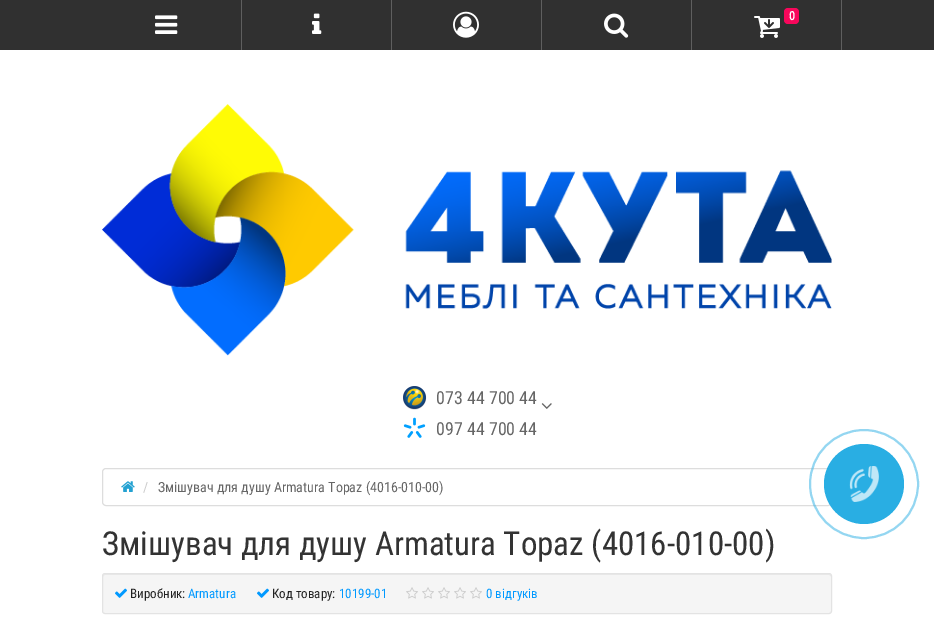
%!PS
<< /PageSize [934 634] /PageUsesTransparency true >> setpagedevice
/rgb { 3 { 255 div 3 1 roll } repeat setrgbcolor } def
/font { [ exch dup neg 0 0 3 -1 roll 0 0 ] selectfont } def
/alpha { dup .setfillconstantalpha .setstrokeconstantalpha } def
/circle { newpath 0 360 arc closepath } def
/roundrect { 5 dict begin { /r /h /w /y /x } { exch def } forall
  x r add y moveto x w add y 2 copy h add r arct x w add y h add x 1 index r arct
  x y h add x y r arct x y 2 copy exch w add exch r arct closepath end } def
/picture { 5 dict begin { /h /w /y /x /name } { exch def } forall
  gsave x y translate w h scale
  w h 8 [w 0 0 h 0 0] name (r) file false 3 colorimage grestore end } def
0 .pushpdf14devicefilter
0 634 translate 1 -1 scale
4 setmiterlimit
255 255 255 rgb
0 0 934 634 rectfill
48 48 48 rgb
0 0 934 50 rectfill
95 95 95 rgb
241 0 1 50 rectfill
(img/1.rgb) 155 15 23 19 picture
391 0 1 50 rectfill
(img/2.rgb) 312 13 10 21 picture
541 0 1 50 rectfill
(img/3.rgb) 453 11 26 27 picture
691 0 1 50 rectfill
(img/4.rgb) 604 13 25 25 picture
841 0 1 50 rectfill
(img/5.rgb) 754 16 26 22 picture
247 7 91 rgb
784 8 15 16 4 roundrect fill
(img/6.rgb) 102 104 730 252 picture
(img/7.rgb) 403 386 24 24 picture
(img/8.rgb) 541 403 11 6 picture
(img/9.rgb) 403 417 23 21 picture
221 221 221 rgb
102.5 468.5 729 37 3.5 roundrect stroke
(img/10.rgb) 121 481 14 11 picture
245 245 245 rgb
102 573 730 41 3 roundrect fill
233 233 233 rgb
105 575 moveto 829 575 lineto 830 575 831 576 831 577 curveto 831 576 831 574 829 574 curveto 105 574 lineto 103 574 103 576 103 577 curveto 103 576 104 575 105 575 curveto closepath fill
227 227 227 rgb
102.5 573.5 729 40 2.5 roundrect stroke
(img/11.rgb) 115 588 12 10 picture
(img/11.rgb) 257 588 12 10 picture
(img/12.rgb) 406 587 12 12 picture
(img/12.rgb) 422 587 12 12 picture
(img/12.rgb) 438 587 12 12 picture
(img/12.rgb) 454 587 12 12 picture
(img/12.rgb) 470 587 12 12 picture
0.5 alpha
41 174 227 rgb
2 setlinewidth
864 484 54 circle stroke
1 alpha
864 484 40 circle fill
(img/13.rgb) 849 466 30 36 picture
/RobotoCondensed-Bold 12 font
255 255 255 rgb
789 20 moveto (0) show
/RobotoCondensed-Regular 18 font
102 102 102 rgb
436 404 moveto (073 44 700 44) show
436 435 moveto (097 44 700 44) show
/RobotoCondensed-Regular 14 font
204 204 204 rgb
143 492 moveto (/) show
102 102 102 rgb
158 492 moveto (Змішувач для душу Armatura Topaz \(4016-010-00\)) show
/RobotoCondensed-Regular 33 font
51 51 51 rgb
102 555 moveto (Змішувач для душу Armatura Topaz \(4016-010-00\)) show
/RobotoCondensed-Regular 13 font
34 34 34 rgb
130 598 moveto (Виробник:) show
0 153 255 rgb
188 598 moveto (Armatura) show
34 34 34 rgb
272 598 moveto (Код товару:) show
0 153 255 rgb
339 598 moveto (10199-01) show
486 598 moveto (0 відгуків) show
.poppdf14devicefilter showpage
